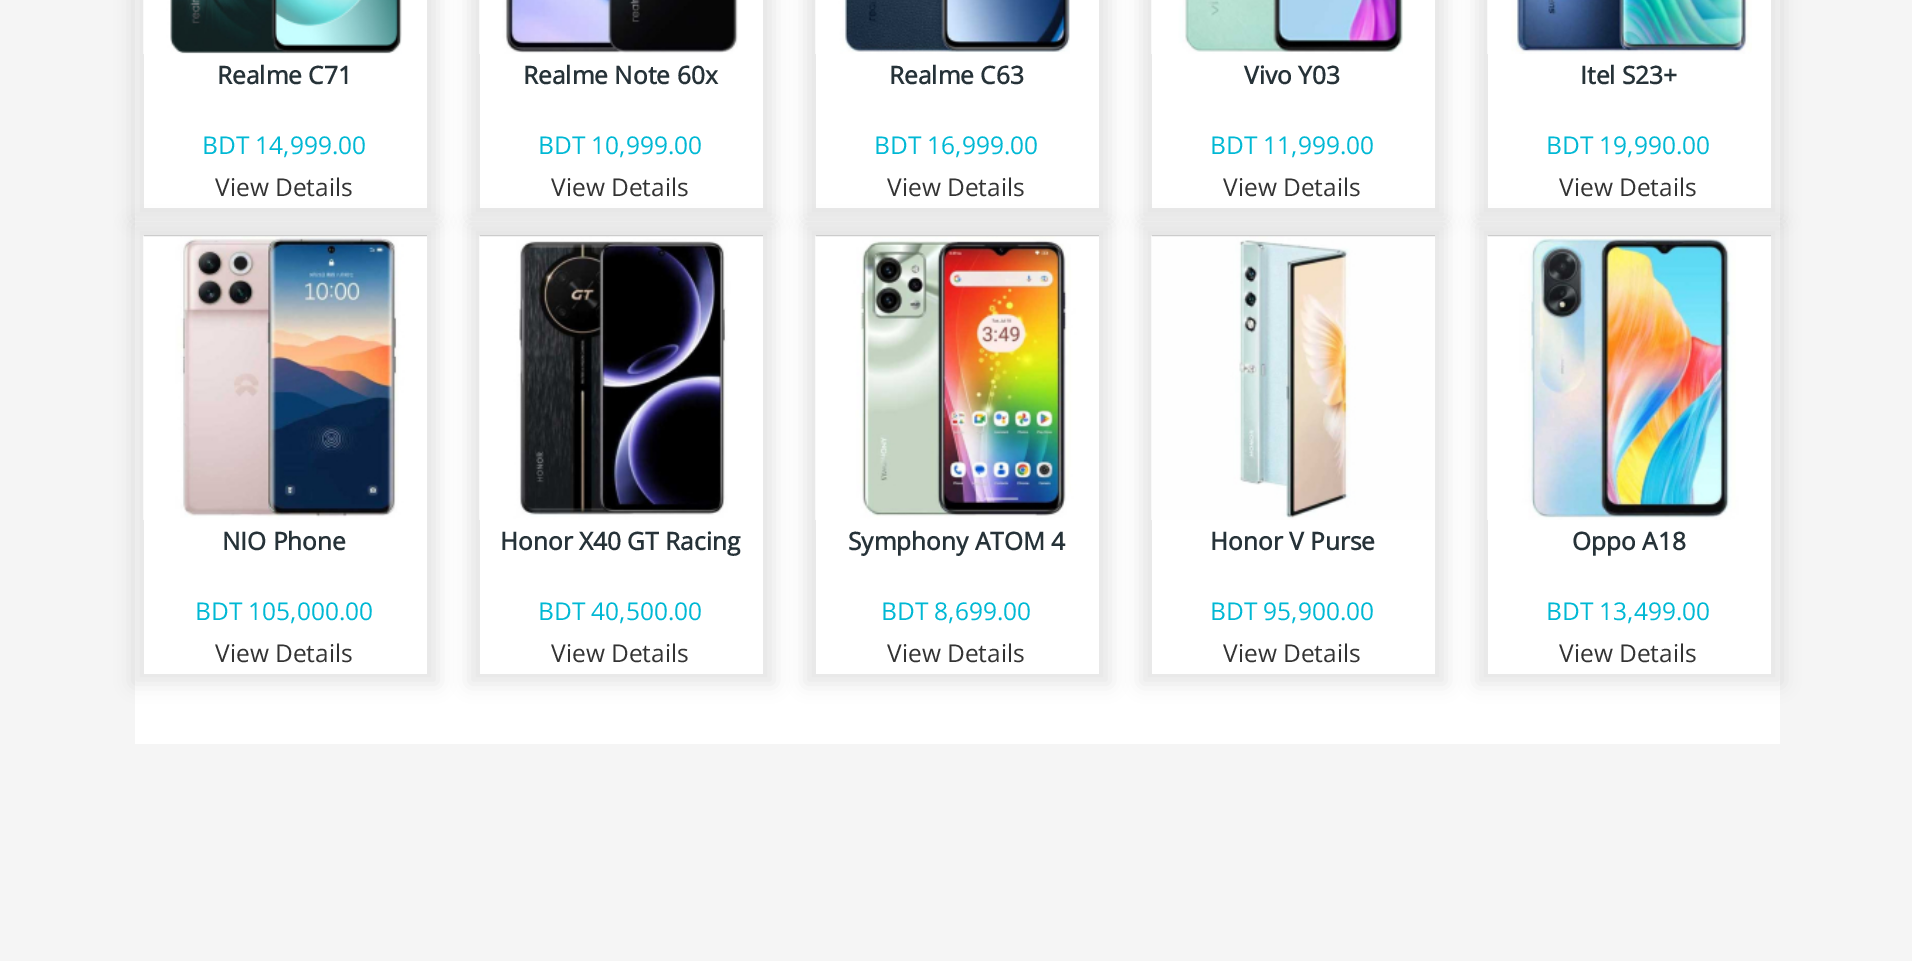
%!PS
<< /PageSize [1912 961] /PageUsesTransparency true >> setpagedevice
/rgb { 3 { 255 div 3 1 roll } repeat setrgbcolor } def
/font { [ exch dup neg 0 0 3 -1 roll 0 0 ] selectfont } def
/alpha { dup .setfillconstantalpha .setstrokeconstantalpha } def
/roundrect { 5 dict begin { /r /h /w /y /x } { exch def } forall
  x r add y moveto x w add y 2 copy h add r arct x w add y h add x 1 index r arct
  x y h add x y r arct x y 2 copy exch w add exch r arct closepath end } def
/shadow { 12 dict begin { /a /b /q /h /w /y /x } { exch def } forall gsave /was 0 def
  9 -2 -9 { dup b mul 4 div /e exch def 1 sub .425 mul 2.718 exch exp 1 add a .99 .min exch div /now exch def
    1 1 now sub 1 was sub div sub alpha /was now def
    w h .min e 2 mul add 0 gt { x e sub y e sub w e 2 mul add h e 2 mul add
      q e add b .6 mul add w h .min 2 div e add .min 0 .max roundrect fill } if } for grestore end } def
/picture { 5 dict begin { /h /w /y /x /name } { exch def } forall
  gsave x y translate w h scale
  w h 8 [w 0 0 h 0 0] name (r) file false 3 colorimage grestore end } def
0 .pushpdf14devicefilter
0 961 translate 1 -1 scale
4 setmiterlimit
245 245 245 rgb
0 0 1912 961 rectfill
255 255 255 rgb
135 0 1645 744 rectfill
gsave
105 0 moveto 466 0 lineto 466 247 lineto 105 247 lineto closepath 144 -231 moveto 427 -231 lineto 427 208 lineto 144 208 lineto closepath eoclip newpath
0 0 0 rgb
133 -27 305 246 0 9 0.1 shadow
grestore
(img/1.rgb) 143 0 259 54 picture
gsave
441 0 moveto 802 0 lineto 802 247 lineto 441 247 lineto closepath 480 -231 moveto 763 -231 lineto 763 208 lineto 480 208 lineto closepath eoclip newpath
0 0 0 rgb
469 -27 305 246 0 9 0.1 shadow
grestore
(img/2.rgb) 479 0 259 54 picture
gsave
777 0 moveto 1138 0 lineto 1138 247 lineto 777 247 lineto closepath 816 -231 moveto 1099 -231 lineto 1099 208 lineto 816 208 lineto closepath eoclip newpath
0 0 0 rgb
805 -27 305 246 0 9 0.1 shadow
grestore
(img/3.rgb) 815 0 255 54 picture
gsave
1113 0 moveto 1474 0 lineto 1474 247 lineto 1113 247 lineto closepath 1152 -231 moveto 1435 -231 lineto 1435 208 lineto 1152 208 lineto closepath eoclip newpath
0 0 0 rgb
1141 -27 305 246 0 9 0.1 shadow
grestore
(img/4.rgb) 1151 0 252 54 picture
gsave
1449 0 moveto 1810 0 lineto 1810 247 lineto 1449 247 lineto closepath 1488 -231 moveto 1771 -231 lineto 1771 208 lineto 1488 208 lineto closepath eoclip newpath
0 0 0 rgb
1477 -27 305 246 0 9 0.1 shadow
grestore
(img/5.rgb) 1487 0 265 54 picture
0 0 0 rgb
133 224 305 460 0 9 0.1 shadow
255 255 255 rgb
144 519 283 155 rectfill
204 204 204 rgb
144 235 283 2 rectfill
(img/6.rgb) 143 236 284 284 picture
0 0 0 rgb
469 224 305 460 0 9 0.1 shadow
255 255 255 rgb
480 519 283 155 rectfill
204 204 204 rgb
480 235 283 2 rectfill
(img/7.rgb) 479 236 284 284 picture
0 0 0 rgb
805 224 305 460 0 9 0.1 shadow
255 255 255 rgb
816 519 283 155 rectfill
204 204 204 rgb
816 235 283 2 rectfill
(img/8.rgb) 815 236 284 284 picture
0 0 0 rgb
1141 224 305 460 0 9 0.1 shadow
255 255 255 rgb
1152 519 283 155 rectfill
204 204 204 rgb
1152 235 283 2 rectfill
(img/9.rgb) 1151 236 284 284 picture
0 0 0 rgb
1477 224 305 460 0 9 0.1 shadow
255 255 255 rgb
1488 519 283 155 rectfill
204 204 204 rgb
1488 235 283 2 rectfill
(img/10.rgb) 1487 236 284 284 picture
/OpenSans-Bold 24.5 font
38 50 56 rgb
217 84 moveto (Realme C71) show
/OpenSans-Regular 24.5 font
0 184 212 rgb
202 154 moveto (BDT 14,999.00) show
51 51 51 rgb
215 196 moveto (View Details) show
/OpenSans-Bold 24.5 font
38 50 56 rgb
523 84 moveto (Realme Note 60x) show
/OpenSans-Regular 24.5 font
0 184 212 rgb
538 154 moveto (BDT 10,999.00) show
51 51 51 rgb
551 196 moveto (View Details) show
/OpenSans-Bold 24.5 font
38 50 56 rgb
889 84 moveto (Realme C63) show
/OpenSans-Regular 24.5 font
0 184 212 rgb
874 154 moveto (BDT 16,999.00) show
51 51 51 rgb
887 196 moveto (View Details) show
/OpenSans-Bold 24.5 font
38 50 56 rgb
1244 84 moveto (Vivo Y03) show
/OpenSans-Regular 24.5 font
0 184 212 rgb
1210 154 moveto (BDT 11,999.00) show
51 51 51 rgb
1223 196 moveto (View Details) show
/OpenSans-Bold 24.5 font
38 50 56 rgb
1580 84 moveto (Itel S23+) show
/OpenSans-Regular 24.5 font
0 184 212 rgb
1546 154 moveto (BDT 19,990.00) show
51 51 51 rgb
1559 196 moveto (View Details) show
/OpenSans-Bold 24.5 font
38 50 56 rgb
222 550 moveto (NIO Phone) show
/OpenSans-Regular 24.5 font
0 184 212 rgb
195 620 moveto (BDT 105,000.00) show
51 51 51 rgb
215 662 moveto (View Details) show
/OpenSans-Bold 24.5 font
38 50 56 rgb
500 550 moveto (Honor X40 GT Racing) show
/OpenSans-Regular 24.5 font
0 184 212 rgb
538 620 moveto (BDT 40,500.00) show
51 51 51 rgb
551 662 moveto (View Details) show
/OpenSans-Bold 24.5 font
38 50 56 rgb
848 550 moveto (Symphony ATOM 4) show
/OpenSans-Regular 24.5 font
0 184 212 rgb
881 620 moveto (BDT 8,699.00) show
51 51 51 rgb
887 662 moveto (View Details) show
/OpenSans-Bold 24.5 font
38 50 56 rgb
1210 550 moveto (Honor V Purse) show
/OpenSans-Regular 24.5 font
0 184 212 rgb
1210 620 moveto (BDT 95,900.00) show
51 51 51 rgb
1223 662 moveto (View Details) show
/OpenSans-Bold 24.5 font
38 50 56 rgb
1572 550 moveto (Oppo A18) show
/OpenSans-Regular 24.5 font
0 184 212 rgb
1546 620 moveto (BDT 13,499.00) show
51 51 51 rgb
1559 662 moveto (View Details) show
.poppdf14devicefilter showpage
